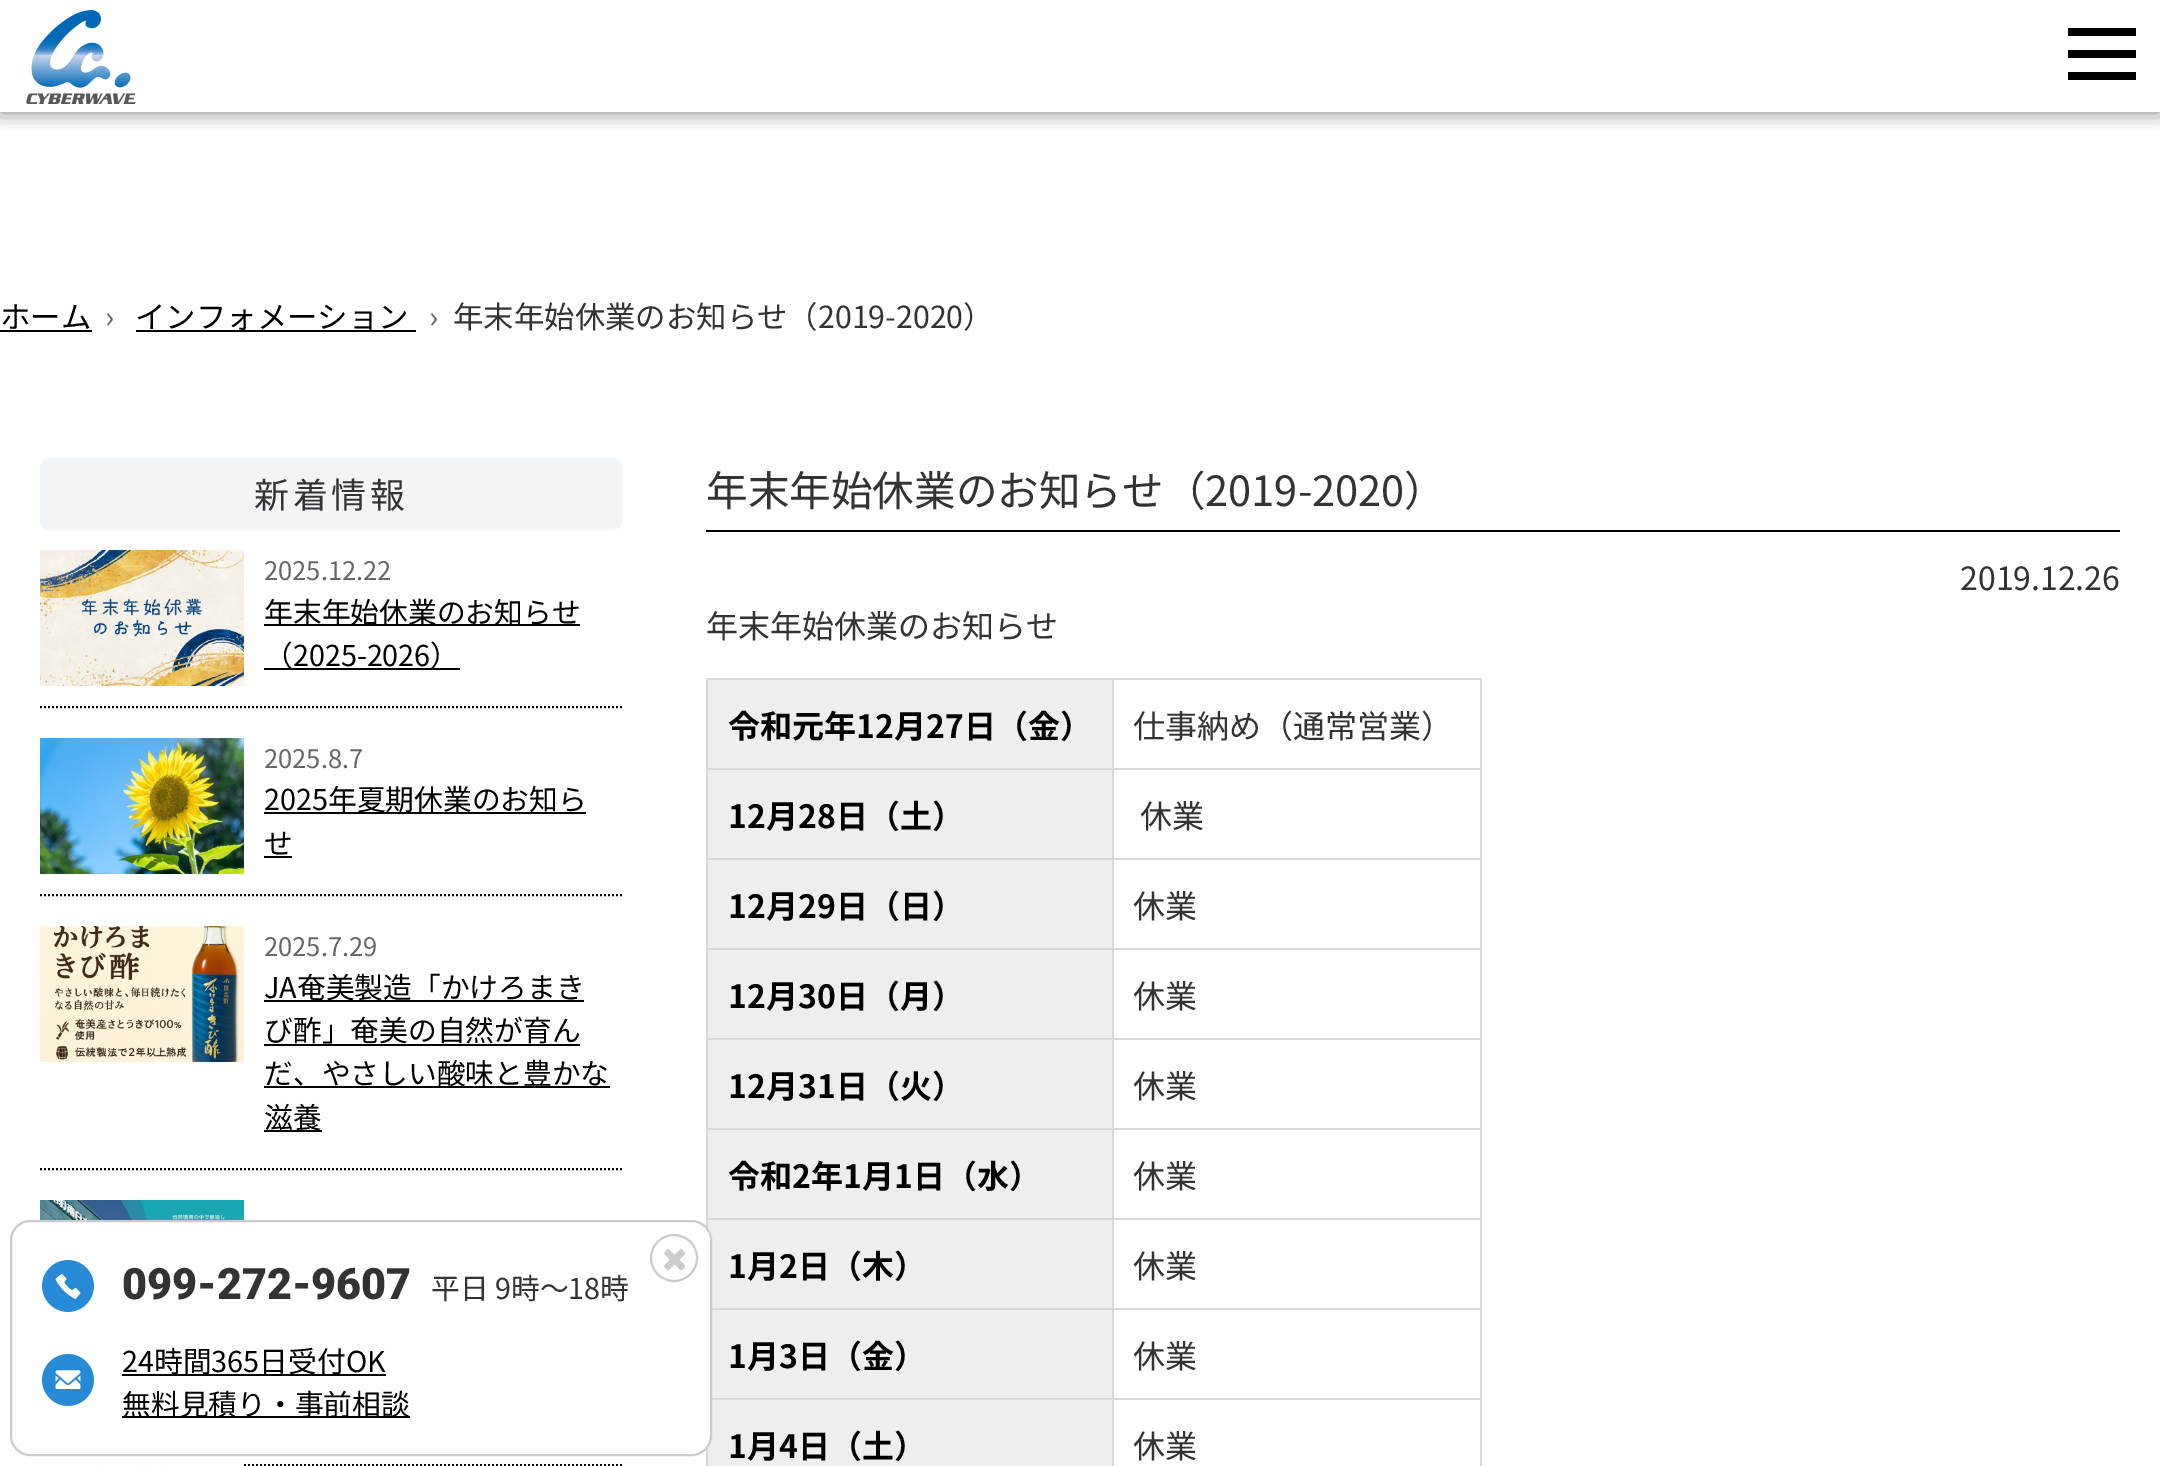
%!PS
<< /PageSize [2160 1466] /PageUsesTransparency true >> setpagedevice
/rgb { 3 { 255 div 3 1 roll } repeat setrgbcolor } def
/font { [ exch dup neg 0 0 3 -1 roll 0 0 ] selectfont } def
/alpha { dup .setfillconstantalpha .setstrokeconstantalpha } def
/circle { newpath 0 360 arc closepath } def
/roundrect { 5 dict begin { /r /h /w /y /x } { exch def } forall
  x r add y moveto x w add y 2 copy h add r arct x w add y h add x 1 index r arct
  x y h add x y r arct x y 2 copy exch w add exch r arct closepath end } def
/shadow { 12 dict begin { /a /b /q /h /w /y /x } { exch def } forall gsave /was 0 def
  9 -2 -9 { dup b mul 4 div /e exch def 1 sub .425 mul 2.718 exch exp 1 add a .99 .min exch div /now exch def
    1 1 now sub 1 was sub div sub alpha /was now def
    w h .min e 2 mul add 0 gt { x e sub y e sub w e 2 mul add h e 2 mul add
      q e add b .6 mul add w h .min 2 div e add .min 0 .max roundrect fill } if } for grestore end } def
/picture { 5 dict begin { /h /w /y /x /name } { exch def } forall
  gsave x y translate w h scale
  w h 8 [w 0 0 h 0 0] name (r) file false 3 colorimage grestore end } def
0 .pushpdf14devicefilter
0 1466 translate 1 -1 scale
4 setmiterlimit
255 255 255 rgb
0 0 2160 1466 rectfill
gsave
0 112 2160 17 rectclip
0 0 0 rgb
0 0 2160 112 0 10 0.5 shadow
grestore
(img/1.rgb) 26 10 110 94 picture
[
  [2068 28 68 8 0 0 0]
  [2068 50 68 8 0 0 0]
  [2068 72 68 8 0 0 0]
  [0 330 92 2 0 0 0]
  [136 330 280 2 0 0 0]
] { aload pop rgb rectfill } forall
242 245 247 rgb
40 458 582 72 10 roundrect fill
0 0 0 rgb
2 setlinewidth
[2 2] 0 setdash
40 707 moveto 622 707 lineto stroke
(img/2.rgb) 40 550 204 136 picture
264 624 316 2 rectfill
264 668 196 2 rectfill
40 895 moveto 622 895 lineto stroke
(img/3.rgb) 40 738 204 136 picture
264 812 322 2 rectfill
264 856 28 2 rectfill
40 1169 moveto 622 1169 lineto stroke
(img/4.rgb) 40 926 204 136 picture
[
  [264 1000 320 2 0 0 0]
  [264 1044 316 2 0 0 0]
  [264 1086 346 2 0 0 0]
  [264 1130 58 2 0 0 0]
] { aload pop rgb rectfill } forall
(img/5.rgb) 40 1200 204 20 picture
40 1465 moveto 622 1465 lineto stroke
(img/6.rgb) 40 1456 204 10 picture
[
  [706 530 1414 2 0 0 0]
  [708 680 404 88 238 238 238]
  [1112 678 370 2 217 217 217]
  [1112 768 370 2 217 217 217]
  [1112 858 370 2 217 217 217]
  [1112 948 370 2 217 217 217]
  [1112 1038 370 2 217 217 217]
  [1112 1128 370 2 217 217 217]
  [1112 1218 370 2 217 217 217]
  [1112 1308 370 2 217 217 217]
  [1112 1398 370 2 217 217 217]
  [1112 1398 2 68 217 217 217]
  [706 1398 408 2 217 217 217]
  [1112 1308 2 92 217 217 217]
  [706 1308 408 2 217 217 217]
  [1112 1218 2 92 217 217 217]
  [706 1218 408 2 217 217 217]
  [1112 1128 2 92 217 217 217]
  [706 1128 408 2 217 217 217]
  [1112 1038 2 92 217 217 217]
  [706 1038 408 2 217 217 217]
  [1112 948 2 92 217 217 217]
  [706 948 408 2 217 217 217]
  [1112 858 2 92 217 217 217]
  [706 858 408 2 217 217 217]
  [1112 768 2 92 217 217 217]
  [706 768 408 2 217 217 217]
  [1112 678 2 92 217 217 217]
  [706 678 408 2 217 217 217]
  [706 1218 2 10 217 217 217]
  [706 1128 2 92 217 217 217]
  [706 1038 2 92 217 217 217]
  [706 948 2 92 217 217 217]
  [706 858 2 92 217 217 217]
  [706 768 2 92 217 217 217]
  [706 678 2 92 217 217 217]
  [1480 1398 2 68 217 217 217]
  [1480 1308 2 92 217 217 217]
  [1480 1218 2 92 217 217 217]
  [1480 1128 2 92 217 217 217]
  [1480 1038 2 92 217 217 217]
  [1480 948 2 92 217 217 217]
  [1480 858 2 92 217 217 217]
  [1480 768 2 92 217 217 217]
  [1480 678 2 92 217 217 217]
  [708 770 404 88 238 238 238]
  [708 860 404 88 238 238 238]
  [708 950 404 88 238 238 238]
  [708 1040 404 88 238 238 238]
  [708 1130 404 88 238 238 238]
  [708 1220 404 88 238 238 238]
  [712 1310 400 88 238 238 238]
  [708 1400 404 66 238 238 238]
  [706 1448 2 18 217 217 217]
] { aload pop rgb rectfill } forall
255 255 255 rgb
11 1221 700 234 19 roundrect gsave fill grestore
204 204 204 rgb
[] 0 setdash
stroke
(img/7.rgb) 42 1260 52 52 picture
674 1258 23 circle stroke
(img/8.rgb) 664 1249 22 22 picture
(img/9.rgb) 42 1354 52 52 picture
0 0 0 rgb
122 1374 264 2 rectfill
122 1416 288 2 rectfill
/NotoSansJP-Regular 30.4 font
0 328 moveto (ホーム) show
102 102 102 rgb
105 328 moveto (›) show
0 0 0 rgb
135 328 moveto (インフォメーション) show
102 102 102 rgb
429 328 moveto (›) show
51 51 51 rgb
453 328 moveto (年末年始休業のお知らせ（2019-2020）) show
/NotoSansJP-Regular 35 font
254 508 moveto 3.5 0 (新着情報) ashow
/NotoSansJP-Regular 25.5 font
102 102 102 rgb
264 580 moveto (2025.12.22) show
/NotoSansJP-Regular 28.75 font
0 0 0 rgb
264 623 moveto (年末年始休業のお知らせ) show
264 666 moveto (（2025-2026）) show
/NotoSansJP-Regular 25.5 font
102 102 102 rgb
264 768 moveto (2025.8.7) show
/NotoSansJP-Regular 28.75 font
0 0 0 rgb
264 810 moveto (2025年夏期休業のお知ら) show
264 854 moveto (せ) show
/NotoSansJP-Regular 25.5 font
102 102 102 rgb
264 956 moveto (2025.7.29) show
/NotoSansJP-Regular 28.75 font
0 0 0 rgb
[
  [(JA奄美製造「かけろまき) 264 998]
  [(び酢」奄美の自然が育ん) 264 1041]
  [(だ、やさしい酸味と豊かな) 264 1084]
  [(滋養) 264 1128]
] { aload pop moveto show } forall
/NotoSansJP-Regular 41.6 font
51 51 51 rgb
706 506 moveto (年末年始休業のお知らせ（2019-2020）) show
/NotoSansJP-Regular 32 font
1960 590 moveto (2019.12.26) show
706 638 moveto (年末年始休業のお知らせ) show
/NotoSansJP-Bold 32 font
0 0 0 rgb
728 738 moveto (令和元年12月27日（金）) show
/NotoSansJP-Regular 32 font
51 51 51 rgb
1133 738 moveto (仕事納め（通常営業）) show
/NotoSansJP-Bold 32 font
0 0 0 rgb
728 828 moveto (12月28日（土）) show
/NotoSansJP-Regular 32 font
51 51 51 rgb
1140 828 moveto (休業) show
/NotoSansJP-Bold 32 font
0 0 0 rgb
728 918 moveto (12月29日（日）) show
/NotoSansJP-Regular 32 font
51 51 51 rgb
1133 918 moveto (休業) show
/NotoSansJP-Bold 32 font
0 0 0 rgb
728 1008 moveto (12月30日（月）) show
/NotoSansJP-Regular 32 font
51 51 51 rgb
1133 1008 moveto (休業) show
/NotoSansJP-Bold 32 font
0 0 0 rgb
728 1098 moveto (12月31日（火）) show
/NotoSansJP-Regular 32 font
51 51 51 rgb
1133 1098 moveto (休業) show
/NotoSansJP-Bold 32 font
0 0 0 rgb
728 1188 moveto (令和2年1月1日（水）) show
/NotoSansJP-Regular 32 font
51 51 51 rgb
1133 1188 moveto (休業) show
/NotoSansJP-Bold 32 font
0 0 0 rgb
728 1278 moveto (1月2日（木）) show
/NotoSansJP-Regular 32 font
51 51 51 rgb
1133 1278 moveto (休業) show
/NotoSansJP-Bold 32 font
0 0 0 rgb
728 1368 moveto (1月3日（金）) show
/NotoSansJP-Regular 32 font
51 51 51 rgb
1133 1368 moveto (休業) show
/NotoSansJP-Bold 32 font
0 0 0 rgb
728 1458 moveto (1月4日（土）) show
/NotoSansJP-Regular 32 font
51 51 51 rgb
1133 1458 moveto (休業) show
/Roboto-Black 43.25 font
122 1299 moveto (099-272-9607) show
/NotoSansJP-Regular 28.75 font
431 1299 moveto (平日 9時〜18時) show
0 0 0 rgb
122 1372 moveto (24時間365日受付OK) show
122 1415 moveto (無料見積り・事前相談) show
.poppdf14devicefilter showpage
